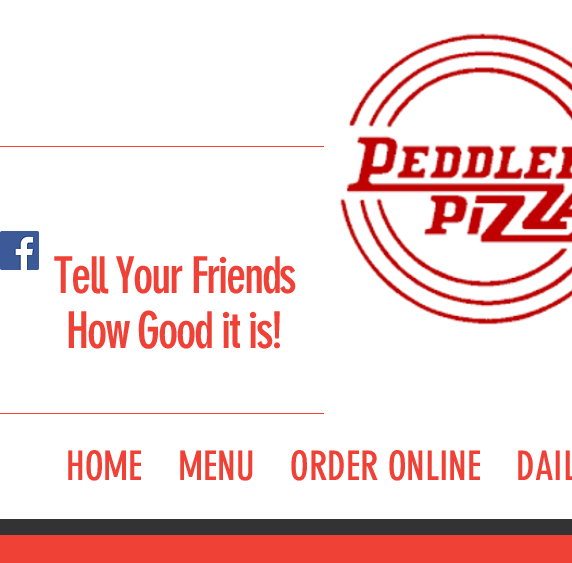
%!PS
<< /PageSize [572 563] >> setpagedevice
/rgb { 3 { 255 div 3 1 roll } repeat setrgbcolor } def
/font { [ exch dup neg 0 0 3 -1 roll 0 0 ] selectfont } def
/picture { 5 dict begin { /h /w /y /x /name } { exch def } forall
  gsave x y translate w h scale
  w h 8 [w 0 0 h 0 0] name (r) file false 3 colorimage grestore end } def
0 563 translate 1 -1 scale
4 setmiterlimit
51 51 51 rgb
0 0 572 563 rectfill
255 255 255 rgb
0 0 572 519 rectfill
(img/1.rgb) 0 231 39 39 picture
239 65 53 rgb
0 146 324 1 rectfill
(img/2.rgb) 340 33 232 292 picture
0 413 324 1 rectfill
0 535 572 28 rectfill
/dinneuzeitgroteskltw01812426-Regular 50 font
53 293 moveto -2.5 0 (Tell Your Friends) ashow
66 348 moveto -2.5 0 (How Good it is!) ashow
/dinneuzeitgroteskltw01812426-Regular 40 font
[
  [(HOME) 66 480]
  [(MENU) 178 480]
  [(ORDER ONLINE) 290 480]
  [(DAIL) 516 480]
] { aload pop moveto show } forall
showpage
